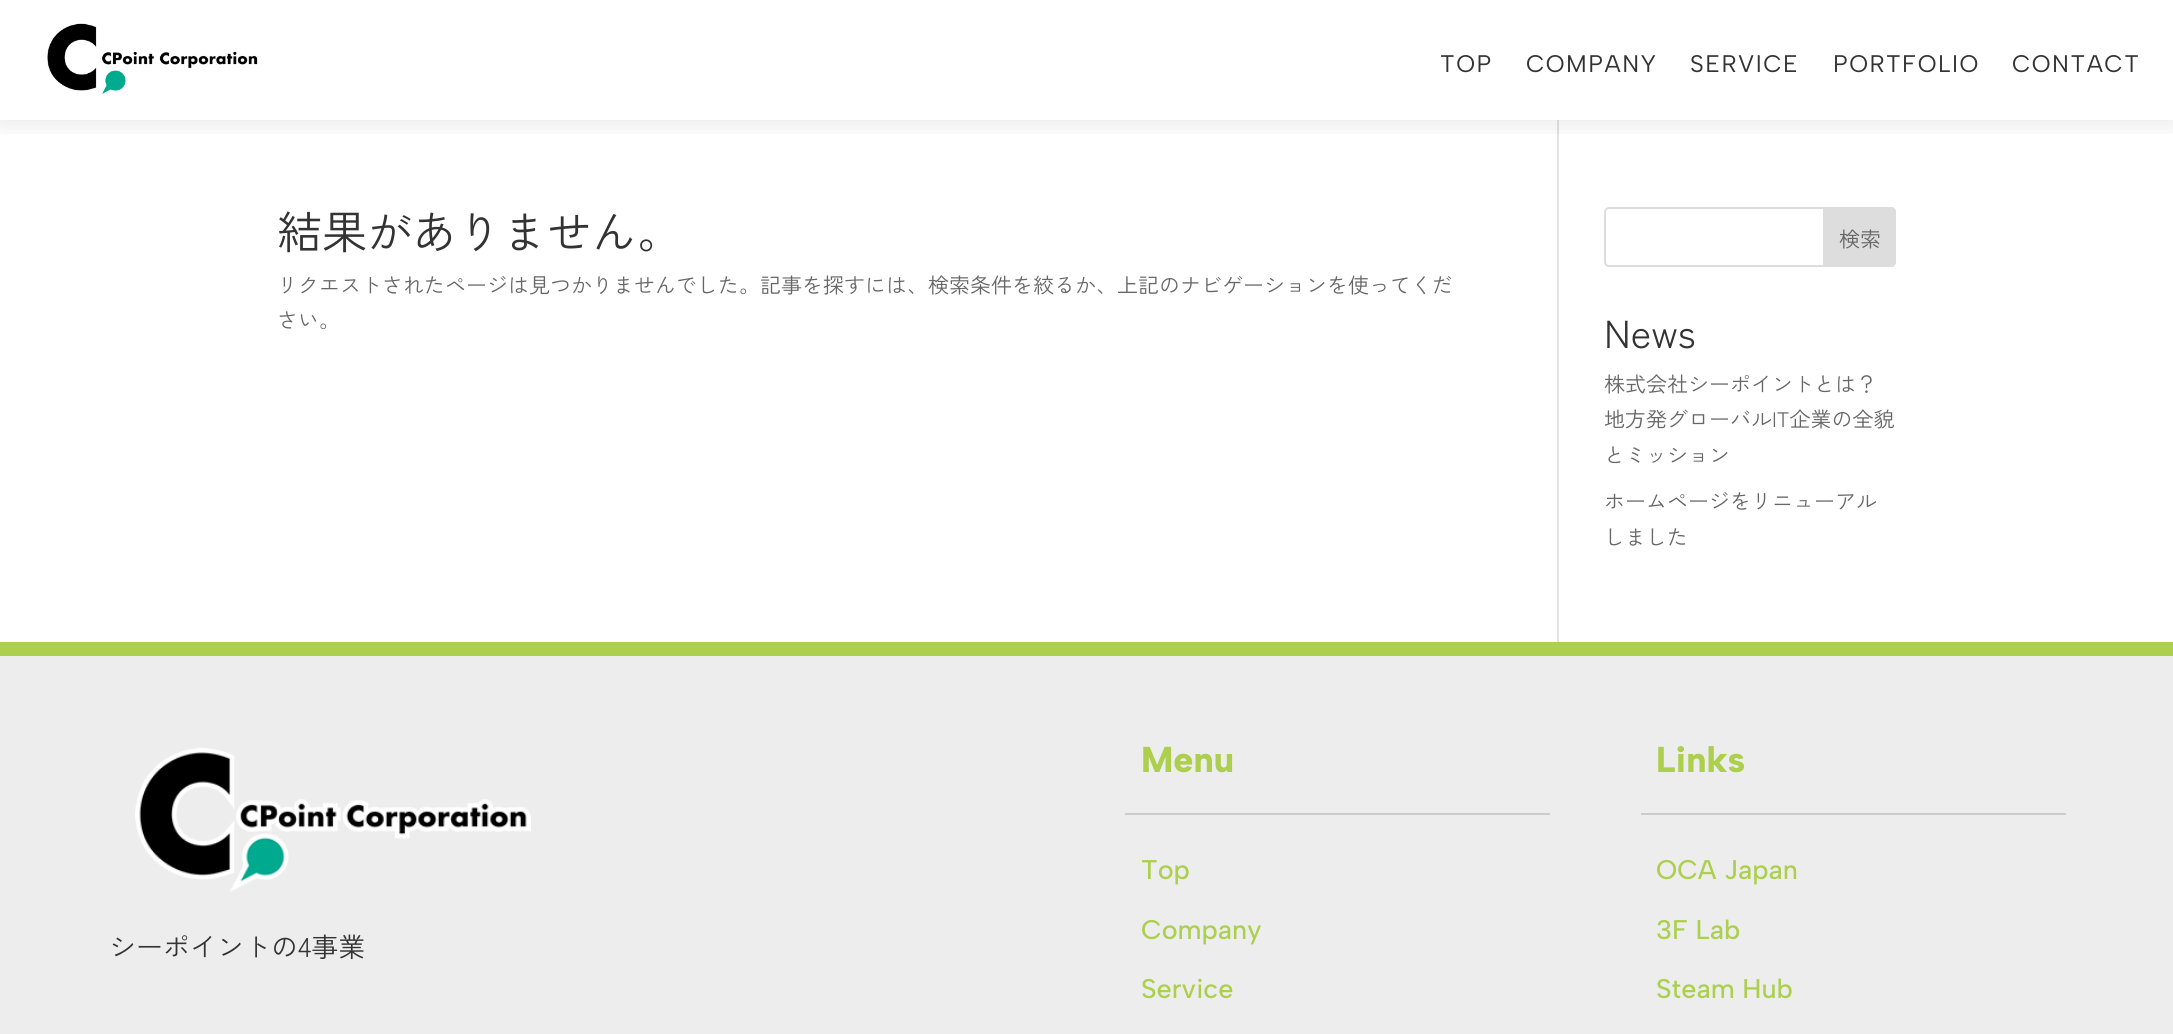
import math
import cairocffi as cairo

surface = cairo.ImageSurface(cairo.FORMAT_RGB24, 2173, 1034)
cr = cairo.Context(surface)
options = cairo.FontOptions()
options.set_hint_metrics(cairo.HINT_METRICS_OFF)
options.set_hint_style(cairo.HINT_STYLE_NONE)
cr.set_font_options(options)
cr.set_miter_limit(4)


def use_color(code):
    cr.set_source_rgb(*(v / 255 for v in bytes.fromhex(code[-6:])))


def spaced_text(x, y, s, letter, word):
    cr.move_to(x, y)
    for ch in s:
        cr.show_text(ch)
        cr.rel_move_to(letter + word * (ch == ' '), 0)


def round_rect(x, y, w, h, r):
    cr.new_sub_path()
    for i, (u, v) in enumerate([(x + w - r, y + h - r), (x + r, y + h - r), (x + r, y + r), (x + w - r, y + r)]):
        cr.arc(u, v, r, i * math.pi / 2, (i + 1) * math.pi / 2)
    cr.close_path()


def shadow(x, y, w, h, r, blur, alpha):
    cr.push_group_with_content(cairo.CONTENT_ALPHA)
    cr.set_operator(cairo.OPERATOR_SOURCE)
    for i in range(15, -16, -2):
        e = blur * i / 6
        if min(w, h) + 2 * e > 0:
            cr.set_source_rgba(0, 0, 0, alpha * math.erfc((i - 1) / 8.5) / 2)
            round_rect(x - e, y - e, w + 2 * e, h + 2 * e, max(0, min(r + e + blur * .6, min(w, h) / 2 + e)))
            cr.fill()
    cr.mask(cr.pop_group())


def picture(path, x, y, w, h):
    cr.save()
    cr.set_source_surface(cairo.ImageSurface.create_from_png(path), x, y)
    cr.rectangle(x, y, w, h)
    cr.fill()
    cr.restore()


use_color("#ffffff")
cr.paint()
use_color("#e2e2e2")
cr.rectangle(1557, 120, 2, 522)
cr.fill()
cr.save()
cr.rectangle(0, 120, 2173, 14)
cr.clip()
use_color("#000000")
shadow(0, 3, 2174, 120, 0, 13.5, 0.1)
cr.restore()
picture("img1.png", 47, 23, 211, 71)
cr.select_font_face("Albert Sans")
cr.set_font_size(24)
use_color("#333333")
spaced_text(1440, 72, "TOP", 1.5, 0)
spaced_text(1526, 72, "COMPANY", 1.5, 0)
spaced_text(1690, 72, "SERVICE", 1.5, 0)
spaced_text(1833, 72, "PORTFOLIO", 1.5, 0)
spaced_text(2012, 72, "CONTACT", 1.5, 0)
cr.select_font_face("Zen Kaku Gothic New")
cr.set_font_size(45)
cr.move_to(277, 249)
cr.show_text("結果がありません。")
cr.set_font_size(21)
use_color("#666666")
cr.move_to(277, 293)
cr.show_text("リクエストされたページは見つかりませんでした。記事を探すには、検索条件を絞るか、上記のナビゲーションを使ってくだ")
cr.move_to(277, 328)
cr.show_text("さい。")
round_rect(1605, 208, 290, 58, 4)
use_color("#dddddd")
cr.stroke()
cr.new_path()
cr.move_to(1824, 208)
cr.line_to(1891, 208)
cr.curve_to(1893, 208, 1895, 210, 1895, 212)
cr.line_to(1895, 262)
cr.curve_to(1895, 264, 1893, 266, 1891, 266)
cr.line_to(1824, 266)
cr.close_path()
cr.fill_preserve()
cr.stroke()
use_color("#666666")
cr.move_to(1839, 247)
cr.show_text("検索")
cr.set_font_size(39)
use_color("#333333")
cr.move_to(1604, 348)
cr.show_text("News")
cr.set_font_size(21)
use_color("#666666")
cr.move_to(1604, 392)
cr.show_text("株式会社シーポイントとは？")
cr.move_to(1604, 427)
cr.show_text("地方発グローバルIT企業の全貌")
cr.move_to(1604, 463)
cr.show_text("とミッション")
cr.move_to(1604, 509)
cr.show_text("ホームページをリニューアル")
cr.move_to(1604, 545)
cr.show_text("しました")
use_color("#ededed")
cr.rectangle(0, 656, 2173, 378)
cr.fill()
use_color("#accf4e")
cr.rectangle(0, 642, 2173, 14)
cr.fill()
picture("img2.png", 135, 747, 396, 145)
cr.set_font_size(27)
use_color("#333333")
cr.move_to(109, 957)
cr.show_text("シーポイントの4事業")
cr.select_font_face("Albert Sans ExtraBold")
cr.set_font_size(36)
use_color("#accf4e")
cr.move_to(1141, 772)
cr.show_text("Menu")
use_color("#cccccc")
cr.rectangle(1125, 813, 425, 2)
cr.fill()
cr.select_font_face("Albert Sans Medium")
cr.set_font_size(27)
use_color("#accf4e")
cr.move_to(1141, 879)
cr.show_text("Top")
cr.move_to(1141, 939)
cr.show_text("Company")
cr.move_to(1141, 998)
cr.show_text("Service")
cr.select_font_face("Albert Sans ExtraBold")
cr.set_font_size(36)
cr.move_to(1656, 772)
cr.show_text("Links")
use_color("#cccccc")
cr.rectangle(1641, 813, 425, 2)
cr.fill()
cr.select_font_face("Albert Sans Medium")
cr.set_font_size(27)
use_color("#accf4e")
cr.move_to(1656, 879)
cr.show_text("OCA Japan")
cr.move_to(1656, 939)
cr.show_text("3F Lab")
cr.move_to(1656, 998)
cr.show_text("Steam Hub")
surface.write_to_png("result.png")
